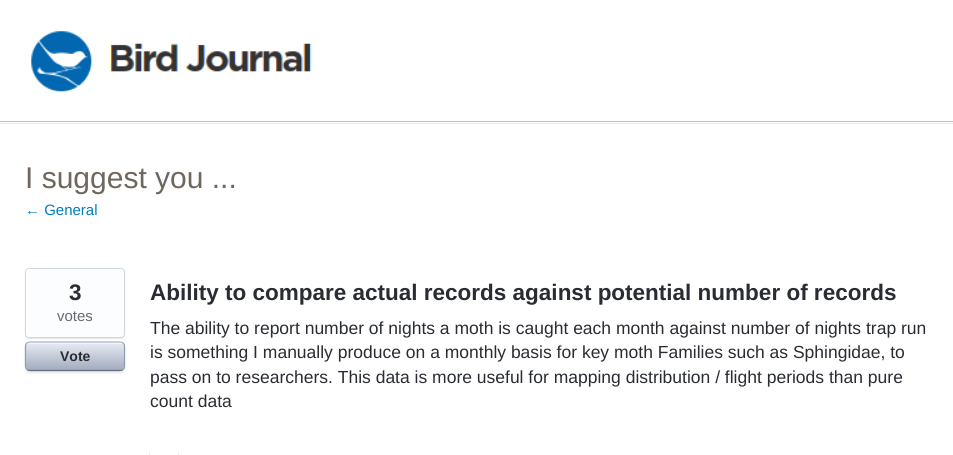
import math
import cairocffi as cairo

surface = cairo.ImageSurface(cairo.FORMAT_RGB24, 953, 455)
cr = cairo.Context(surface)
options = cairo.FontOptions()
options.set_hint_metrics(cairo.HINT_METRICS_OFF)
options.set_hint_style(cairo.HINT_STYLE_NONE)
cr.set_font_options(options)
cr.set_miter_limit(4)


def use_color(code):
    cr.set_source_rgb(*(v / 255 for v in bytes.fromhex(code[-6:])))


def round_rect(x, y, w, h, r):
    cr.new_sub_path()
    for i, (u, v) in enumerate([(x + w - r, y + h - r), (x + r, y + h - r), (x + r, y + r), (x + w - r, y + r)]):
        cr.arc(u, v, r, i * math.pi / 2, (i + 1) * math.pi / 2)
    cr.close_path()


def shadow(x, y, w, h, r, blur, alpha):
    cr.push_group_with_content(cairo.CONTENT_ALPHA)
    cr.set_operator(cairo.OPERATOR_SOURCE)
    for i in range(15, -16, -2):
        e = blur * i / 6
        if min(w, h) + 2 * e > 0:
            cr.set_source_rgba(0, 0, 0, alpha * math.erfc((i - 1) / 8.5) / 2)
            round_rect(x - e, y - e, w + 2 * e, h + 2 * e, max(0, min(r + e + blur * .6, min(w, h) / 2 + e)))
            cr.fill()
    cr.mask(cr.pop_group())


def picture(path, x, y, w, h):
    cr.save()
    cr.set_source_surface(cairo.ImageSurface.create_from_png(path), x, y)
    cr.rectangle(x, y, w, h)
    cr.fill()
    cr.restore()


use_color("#ffffff")
cr.paint()
use_color("#bfbfbf")
cr.rectangle(0, 121, 953, 1)
cr.fill()
picture("img1.png", 31, 31, 281, 61)
use_color("#e3e8f2")
cr.rectangle(0, 123, 953, 1)
cr.fill()
cr.select_font_face("Liberation Sans")
cr.set_font_size(30)
use_color("#6f675e")
cr.move_to(25, 188)
cr.show_text("I suggest you ...")
cr.set_font_size(15)
use_color("#007dbf")
cr.move_to(25, 215)
cr.show_text("← General")
use_color("#000000")
shadow(25, 269, 100, 70, 4, 0.5, 0.1)
use_color("#fcfdff")
round_rect(25.5, 268.5, 99, 69, 3.5)
cr.fill_preserve()
use_color("#cfd7e6")
cr.set_line_width(1)
cr.stroke()
cr.select_font_face("Liberation Sans", cairo.FONT_SLANT_NORMAL, cairo.FONT_WEIGHT_BOLD)
cr.set_font_size(22.5)
use_color("#292c33")
cr.move_to(69, 300)
cr.show_text("3")
cr.select_font_face("Liberation Sans")
cr.set_font_size(15)
use_color("#646b72")
cr.move_to(57, 321)
cr.show_text("votes")
use_color("#000000")
shadow(25, 343, 100, 30, 5, 1, 0.1)
gradient = cairo.LinearGradient(26, 343, 26, 370)
gradient.add_color_stop_rgba(0, 0.902, 0.918, 0.949, 1)
gradient.add_color_stop_rgba(1, 0.635, 0.675, 0.749, 1)
cr.set_source(gradient)
round_rect(26, 343, 98, 27, 4)
cr.fill()
cr.set_source_rgba(1, 1, 1, 0.5)
cr.new_path()
cr.move_to(30, 344)
cr.line_to(120, 344)
cr.curve_to(122, 344, 124, 345, 124, 348)
cr.curve_to(124, 339, 109, 343, 105, 343)
cr.line_to(45, 343)
cr.curve_to(41, 343, 26, 339, 26, 348)
cr.curve_to(26, 345, 28, 344, 30, 344)
cr.close_path()
cr.fill()
cr.new_path()
cr.move_to(27, 343)
cr.curve_to(27.5, 342.5, 29, 342, 30, 342)
cr.line_to(120, 342)
cr.curve_to(121, 342, 122.5, 342.5, 123, 343)
use_color("#a3b1cc")
cr.set_line_width(1.2)
cr.stroke()
cr.new_path()
cr.move_to(123, 343)
cr.curve_to(124, 344, 124.5, 345, 124.5, 346)
cr.line_to(124.5, 366)
cr.curve_to(124.5, 367.5, 124, 368.5, 123, 369.5)
use_color("#8f9bb3")
cr.stroke()
cr.new_path()
cr.move_to(123, 369.5)
cr.curve_to(122.5, 370, 121, 370.5, 120, 370.5)
cr.line_to(30, 370.5)
cr.curve_to(29, 370.5, 27.5, 370, 27, 369.5)
use_color("#666f80")
cr.stroke()
cr.new_path()
cr.move_to(27, 369.5)
cr.curve_to(26, 368.5, 25.5, 367.5, 25.5, 366)
cr.line_to(25.5, 346)
cr.curve_to(25.5, 345, 26, 344, 27, 343)
use_color("#8f9bb3")
cr.stroke()
cr.select_font_face("Liberation Sans", cairo.FONT_SLANT_NORMAL, cairo.FONT_WEIGHT_BOLD)
cr.set_font_size(14)
use_color("#292c33")
cr.move_to(60, 361)
cr.show_text("Vote")
cr.set_font_size(22.5)
cr.move_to(150, 300)
cr.show_text("Ability to compare actual records against potential number of records")
cr.select_font_face("Liberation Sans")
cr.set_font_size(17.5)
cr.move_to(150, 334)
cr.show_text("The ability to report number of nights a moth is caught each month against number of nights trap run")
cr.move_to(150, 358)
cr.show_text("is something I manually produce on a monthly basis for key moth Families such as Sphingidae, to")
cr.move_to(150, 383)
cr.show_text("pass on to researchers. This data is more useful for mapping distribution / flight periods than pure")
cr.move_to(150, 407)
cr.show_text("count data")
cr.save()
cr.set_fill_rule(cairo.FILL_RULE_EVEN_ODD)
cr.new_path()
cr.move_to(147, 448)
cr.line_to(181, 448)
cr.line_to(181, 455)
cr.line_to(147, 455)
cr.close_path()
cr.move_to(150, 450)
cr.line_to(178, 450)
cr.line_to(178, 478)
cr.line_to(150, 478)
cr.close_path()
cr.clip()
use_color("#000000")
shadow(150, 451, 28, 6, 0, 0.5, 0.25)
cr.restore()
cr.rectangle(150.5, 450.5, 27, 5)
use_color("#ffffff")
cr.set_line_width(1)
cr.stroke()
surface.write_to_png("result.png")
